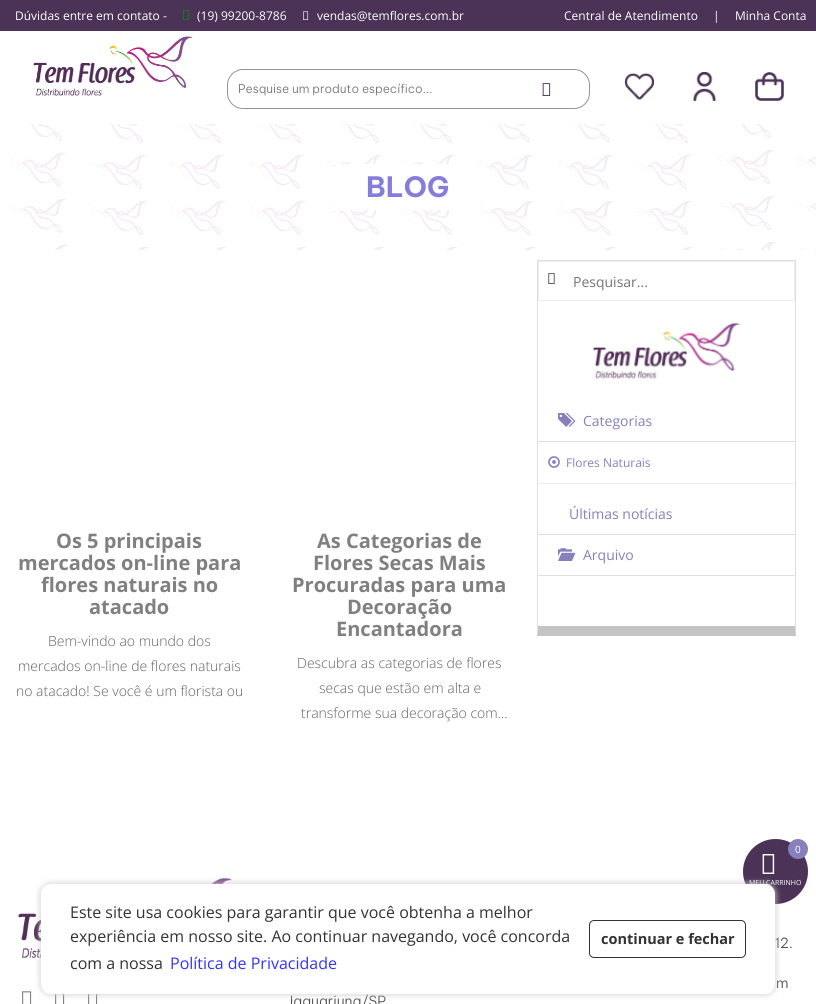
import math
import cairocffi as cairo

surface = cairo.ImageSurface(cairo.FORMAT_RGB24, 816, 1004)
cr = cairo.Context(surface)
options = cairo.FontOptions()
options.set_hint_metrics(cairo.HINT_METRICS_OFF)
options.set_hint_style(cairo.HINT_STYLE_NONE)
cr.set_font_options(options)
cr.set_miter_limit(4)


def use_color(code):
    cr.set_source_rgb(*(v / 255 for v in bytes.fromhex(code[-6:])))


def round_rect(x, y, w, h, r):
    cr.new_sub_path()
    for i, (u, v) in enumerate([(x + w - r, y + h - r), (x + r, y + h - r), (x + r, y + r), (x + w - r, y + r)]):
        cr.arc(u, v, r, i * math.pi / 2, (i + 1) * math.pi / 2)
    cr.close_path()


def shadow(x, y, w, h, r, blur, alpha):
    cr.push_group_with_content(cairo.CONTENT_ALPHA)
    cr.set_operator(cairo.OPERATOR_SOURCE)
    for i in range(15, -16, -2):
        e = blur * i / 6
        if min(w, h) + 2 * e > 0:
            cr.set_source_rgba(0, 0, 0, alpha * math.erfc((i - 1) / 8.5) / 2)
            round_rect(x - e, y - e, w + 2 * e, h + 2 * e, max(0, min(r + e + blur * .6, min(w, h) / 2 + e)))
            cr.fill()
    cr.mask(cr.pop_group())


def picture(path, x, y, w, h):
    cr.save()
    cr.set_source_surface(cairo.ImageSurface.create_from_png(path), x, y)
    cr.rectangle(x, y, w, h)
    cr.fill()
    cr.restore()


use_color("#ffffff")
cr.paint()
use_color("#4b3257")
cr.rectangle(0, 0, 816, 31)
cr.fill()
cr.select_font_face("Open Sans")
cr.set_font_size(12)
use_color("#ffffff")
cr.move_to(15, 20)
cr.show_text("Dúvidas entre em contato -")
picture("img1.png", 183, 10, 7, 10)
cr.move_to(197, 20)
cr.show_text("(19) 99200-8786")
picture("img2.png", 303, 11, 6, 9)
cr.move_to(317, 20)
cr.show_text("vendas@temflores.com.br")
cr.move_to(564, 20)
cr.show_text("Central de Atendimento")
cr.move_to(713, 20)
cr.show_text("|")
cr.move_to(735, 20)
cr.show_text("Minha Conta")
picture("img3.png", 33, 36, 160, 60)
round_rect(227.5, 69.5, 362, 39, 15.5)
use_color("#949494")
cr.set_line_width(1)
cr.stroke()
cr.select_font_face("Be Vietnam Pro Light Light")
use_color("#757575")
cr.move_to(238, 93)
cr.show_text("Pesquise um produto específico...")
picture("img4.png", 542, 83, 9, 13)
picture("img5.png", 624, 73, 30, 27)
picture("img6.png", 692, 72, 25, 29)
picture("img7.png", 755, 72, 29, 29)
picture("img8.png", 0, 124, 816, 126)
use_color("#ffffff")
cr.rectangle(336, 164, 144, 46)
cr.fill()
cr.select_font_face("Be Vietnam Pro", cairo.FONT_SLANT_NORMAL, cairo.FONT_WEIGHT_BOLD)
cr.set_font_size(28)
use_color("#857ddd")
cr.move_to(366, 197)
cr.show_text("BLOG")
use_color("#dfdfdf")
cr.rectangle(537, 260, 259, 1)
cr.fill()
cr.new_path()
cr.move_to(796, 260)
cr.line_to(796, 636)
cr.line_to(795, 626)
cr.line_to(795, 261)
cr.close_path()
cr.fill()
use_color("#c4c4c4")
cr.new_path()
cr.move_to(796, 636)
cr.line_to(537, 636)
cr.line_to(538, 626)
cr.line_to(795, 626)
cr.close_path()
cr.fill()
use_color("#dfdfdf")
cr.new_path()
cr.move_to(537, 636)
cr.line_to(537, 260)
cr.line_to(538, 261)
cr.line_to(538, 626)
cr.close_path()
cr.fill()
cr.rectangle(538.5, 261.5, 256, 39)
use_color("#eeeeee")
cr.stroke()
picture("img9.png", 548, 273, 7, 11)
cr.select_font_face("Open Sans")
cr.set_font_size(14)
use_color("#757575")
cr.move_to(573, 287)
cr.show_text("Pesquisar...")
picture("img10.png", 592, 322, 149, 57)
use_color("#dfdfdf")
cr.rectangle(538, 441, 257, 1)
cr.fill()
picture("img11.png", 558, 413, 18, 14)
use_color("#8680bc")
cr.move_to(583, 426)
cr.show_text("Categorias")
use_color("#eeeeee")
cr.rectangle(538, 483, 257, 1)
cr.fill()
picture("img12.png", 548, 456, 12, 12)
cr.set_font_size(12)
use_color("#8680bc")
cr.move_to(566, 467)
cr.show_text("Flores Naturais")
use_color("#dfdfdf")
cr.rectangle(538, 534, 257, 1)
cr.fill()
cr.set_font_size(14)
use_color("#8680bc")
cr.move_to(569, 519)
cr.show_text("Últimas notícias")
use_color("#dfdfdf")
cr.rectangle(538, 575, 257, 1)
cr.fill()
picture("img13.png", 558, 548, 18, 13)
use_color("#8680bc")
cr.move_to(583, 560)
cr.show_text("Arquivo")
cr.select_font_face("Open Sans", cairo.FONT_SLANT_NORMAL, cairo.FONT_WEIGHT_BOLD)
cr.set_font_size(20)
use_color("#808080")
cr.move_to(56, 548)
cr.show_text("Os 5 principais")
cr.move_to(18, 570)
cr.show_text("mercados on-line para")
cr.move_to(41, 592)
cr.show_text("flores naturais no")
cr.move_to(89, 614)
cr.show_text("atacado")
cr.select_font_face("Open Sans Light")
cr.set_font_size(14)
use_color("#606060")
cr.move_to(48, 646)
cr.show_text("Bem-vindo ao mundo dos")
cr.move_to(18, 671)
cr.show_text("mercados on-line de flores naturais")
cr.move_to(16, 696)
cr.show_text("no atacado! Se você é um florista ou")
cr.select_font_face("Open Sans", cairo.FONT_SLANT_NORMAL, cairo.FONT_WEIGHT_BOLD)
cr.set_font_size(20)
use_color("#808080")
cr.move_to(317, 548)
cr.show_text("As Categorias de")
cr.move_to(313, 570)
cr.show_text("Flores Secas Mais")
cr.move_to(292, 592)
cr.show_text("Procuradas para uma")
cr.move_to(347, 614)
cr.show_text("Decoração")
cr.move_to(336, 636)
cr.show_text("Encantadora")
cr.select_font_face("Open Sans Light")
cr.set_font_size(14)
use_color("#606060")
cr.move_to(297, 668)
cr.show_text("Descubra as categorias de flores")
cr.move_to(319, 693)
cr.show_text("secas que estão em alta e")
cr.move_to(301, 718)
cr.show_text("transforme sua decoração com…")
use_color("#4b3257")
cr.new_path()
cr.arc(775.5, 871.5, 32.5, 0, 2 * math.pi)
cr.fill()
use_color("#8680bc")
cr.arc(798, 849, 10, 0, 2 * math.pi)
cr.fill()
cr.select_font_face("Open Sans")
cr.set_font_size(10)
use_color("#ffffff")
cr.move_to(795, 853)
cr.show_text("0")
picture("img14.png", 762, 854, 13, 20)
cr.set_font_size(7)
cr.move_to(749, 885)
cr.show_text("MEU CARRINHO")
picture("img15.png", 18, 878, 214, 81)
picture("img16.png", 22, 991, 10, 13)
picture("img17.png", 55, 994, 10, 10)
picture("img17.png", 88, 994, 10, 10)
cr.select_font_face("Be Vietnam Pro Light Light")
cr.set_font_size(14)
use_color("#4d4d4d")
cr.move_to(775, 948)
cr.show_text("12.")
cr.move_to(776, 988)
cr.show_text("m")
cr.move_to(287, 1006)
cr.show_text("Jaguariuna/SP")
use_color("#cccccc")
shadow(39, 882, 738, 114, 12, 2.5, 0.63)
use_color("#ffffff")
round_rect(41, 884, 734, 110, 10)
cr.fill()
cr.select_font_face("Open Sans")
cr.set_font_size(16)
use_color("#333333")
cr.move_to(70, 918)
cr.show_text("Este site usa cookies para garantir que você obtenha a melhor")
cr.move_to(70, 942)
cr.show_text("experiência em nosso site. Ao continuar navegando, você concorda")
cr.move_to(70, 969)
cr.show_text("com a nossa")
use_color("#3333ff")
cr.move_to(170, 969)
cr.show_text("Política de Privacidade")
round_rect(589.5, 920.5, 156, 37, 4.5)
use_color("#333333")
cr.stroke()
cr.select_font_face("Open Sans", cairo.FONT_SLANT_NORMAL, cairo.FONT_WEIGHT_BOLD)
cr.set_font_size(14.5)
cr.move_to(601, 944)
cr.show_text("continuar e fechar")
surface.write_to_png("result.png")
